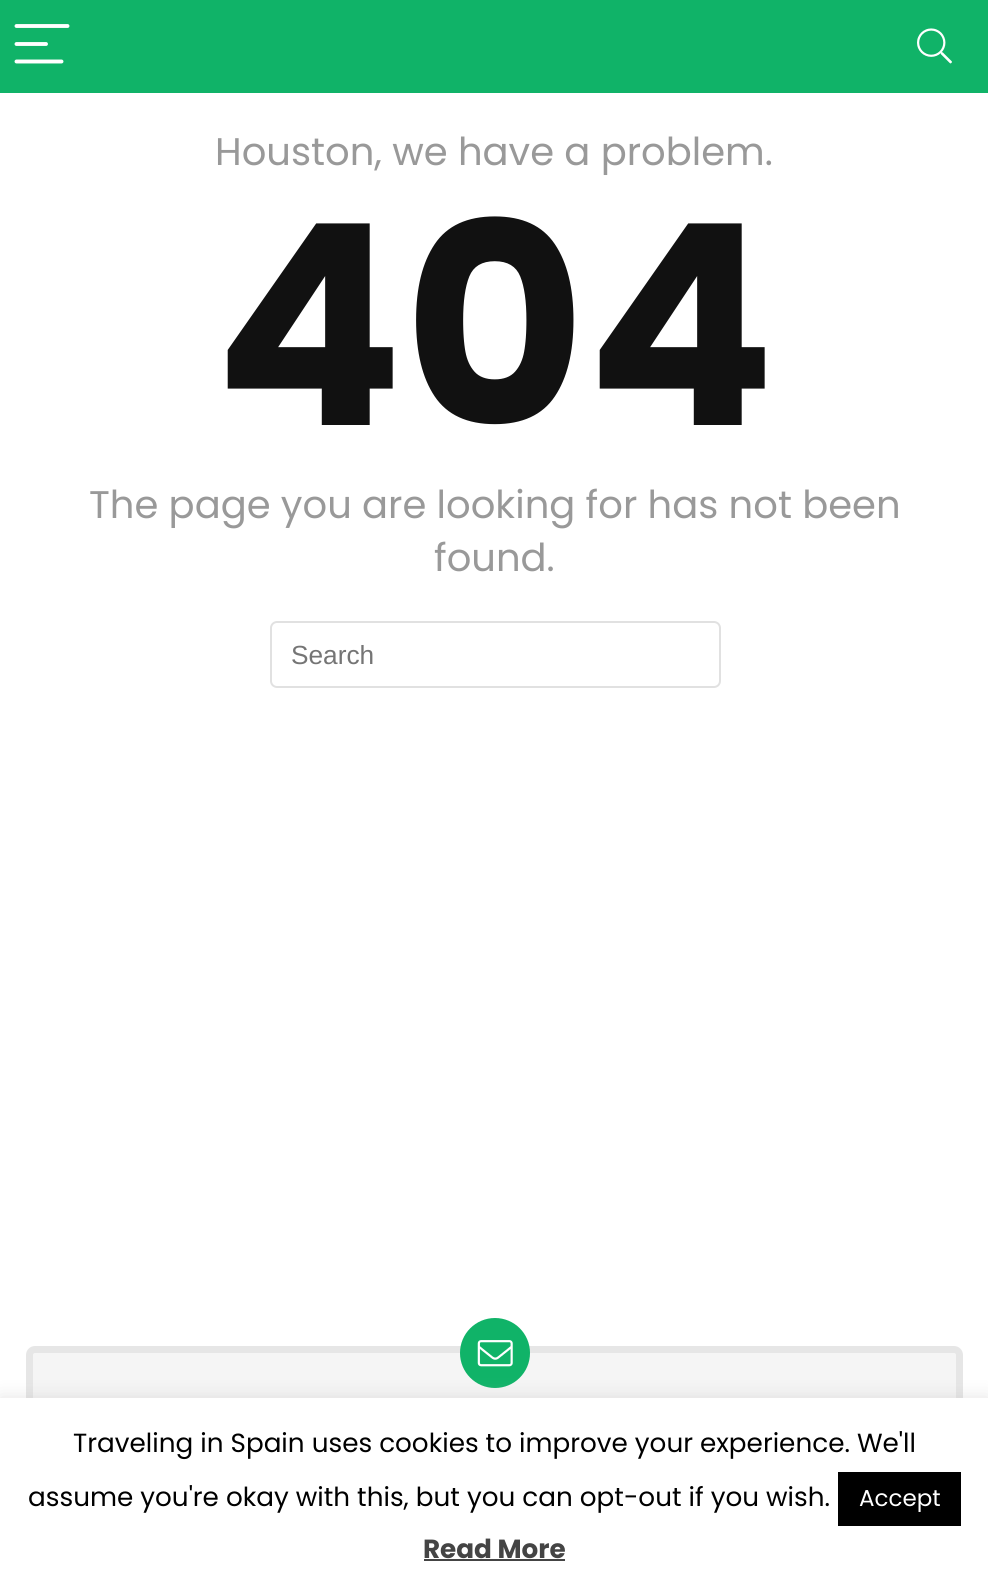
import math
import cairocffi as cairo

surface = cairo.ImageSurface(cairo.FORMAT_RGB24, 988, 1589)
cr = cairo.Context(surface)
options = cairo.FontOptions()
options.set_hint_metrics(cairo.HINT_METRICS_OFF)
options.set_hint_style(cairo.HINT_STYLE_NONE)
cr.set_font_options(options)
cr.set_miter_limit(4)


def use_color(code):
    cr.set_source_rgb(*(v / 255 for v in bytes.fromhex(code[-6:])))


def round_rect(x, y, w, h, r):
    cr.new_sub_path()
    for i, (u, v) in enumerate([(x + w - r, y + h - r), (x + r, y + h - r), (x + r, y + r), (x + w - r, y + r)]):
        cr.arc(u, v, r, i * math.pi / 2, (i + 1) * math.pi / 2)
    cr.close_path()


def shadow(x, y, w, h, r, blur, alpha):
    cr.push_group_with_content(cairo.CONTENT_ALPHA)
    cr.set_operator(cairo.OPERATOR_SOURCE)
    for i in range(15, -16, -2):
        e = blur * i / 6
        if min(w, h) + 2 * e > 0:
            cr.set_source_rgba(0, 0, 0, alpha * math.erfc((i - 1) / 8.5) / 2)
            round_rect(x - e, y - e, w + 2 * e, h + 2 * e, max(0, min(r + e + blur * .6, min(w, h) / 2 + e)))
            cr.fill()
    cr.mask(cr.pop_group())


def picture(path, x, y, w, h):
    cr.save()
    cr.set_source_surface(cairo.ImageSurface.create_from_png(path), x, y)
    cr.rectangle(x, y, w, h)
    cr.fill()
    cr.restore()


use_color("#ffffff")
cr.paint()
use_color("#10b368")
cr.rectangle(0, 0, 988, 93)
cr.fill()
cr.new_path()
cr.move_to(16.5, 26)
cr.line_to(67.5, 26)
cr.move_to(16.5, 44)
cr.line_to(46, 44)
cr.move_to(16.5, 61.5)
cr.line_to(61.5, 61.5)
use_color("#ffffff")
cr.set_line_width(3.9)
cr.set_line_cap(cairo.LINE_CAP_ROUND)
cr.stroke()
picture("img1.png", 917, 28, 35, 36)
cr.select_font_face("Poppins")
cr.set_font_size(38.5)
use_color("#999999")
cr.move_to(215, 165)
cr.show_text("Houston, we have a problem.")
cr.select_font_face("Poppins", cairo.FONT_SLANT_NORMAL, cairo.FONT_WEIGHT_BOLD)
cr.set_font_size(280)
use_color("#111111")
cr.move_to(214, 425)
cr.show_text("404")
cr.select_font_face("Poppins")
cr.set_font_size(38.5)
use_color("#999999")
cr.move_to(89, 518)
cr.show_text("The page you are looking for has not been")
cr.move_to(434, 571)
cr.show_text("found.")
round_rect(271, 622, 449, 65, 6)
use_color("#e1e1e1")
cr.set_line_width(2)
cr.set_line_cap(cairo.LINE_CAP_BUTT)
cr.stroke()
cr.select_font_face("Liberation Sans")
cr.set_font_size(26.25)
use_color("#757575")
cr.move_to(291, 664)
cr.show_text("Search")
use_color("#f5f5f5")
round_rect(29.5, 1349.5, 930, 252, 5.5)
cr.fill_preserve()
use_color("#e6e6e6")
cr.set_line_width(7)
cr.stroke()
use_color("#10b368")
cr.arc(495, 1353, 35, 0, 2 * math.pi)
cr.fill()
picture("img2.png", 477, 1340, 36, 27)
use_color("#acabab")
shadow(0, 1397, 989, 190, 0, 9, 0.3)
use_color("#ffffff")
cr.rectangle(0, 1398, 988, 191)
cr.fill()
cr.select_font_face("Poppins")
use_color("#000000")
cr.move_to(73, 1452)
cr.show_text("Traveling in Spain uses cookies to improve your experience. We'll")
cr.move_to(28, 1506)
cr.show_text("assume you're okay with this, but you can opt-out if you wish.")
cr.rectangle(838, 1472, 123, 54)
cr.fill()
cr.set_font_size(23)
use_color("#ffffff")
cr.move_to(859, 1506)
cr.show_text("Accept")
cr.select_font_face("Poppins", cairo.FONT_SLANT_NORMAL, cairo.FONT_WEIGHT_BOLD)
cr.set_font_size(26.25)
use_color("#444444")
cr.move_to(423, 1558)
cr.show_text("Read More")
cr.rectangle(424, 1559, 141, 2)
cr.fill()
surface.write_to_png("result.png")
